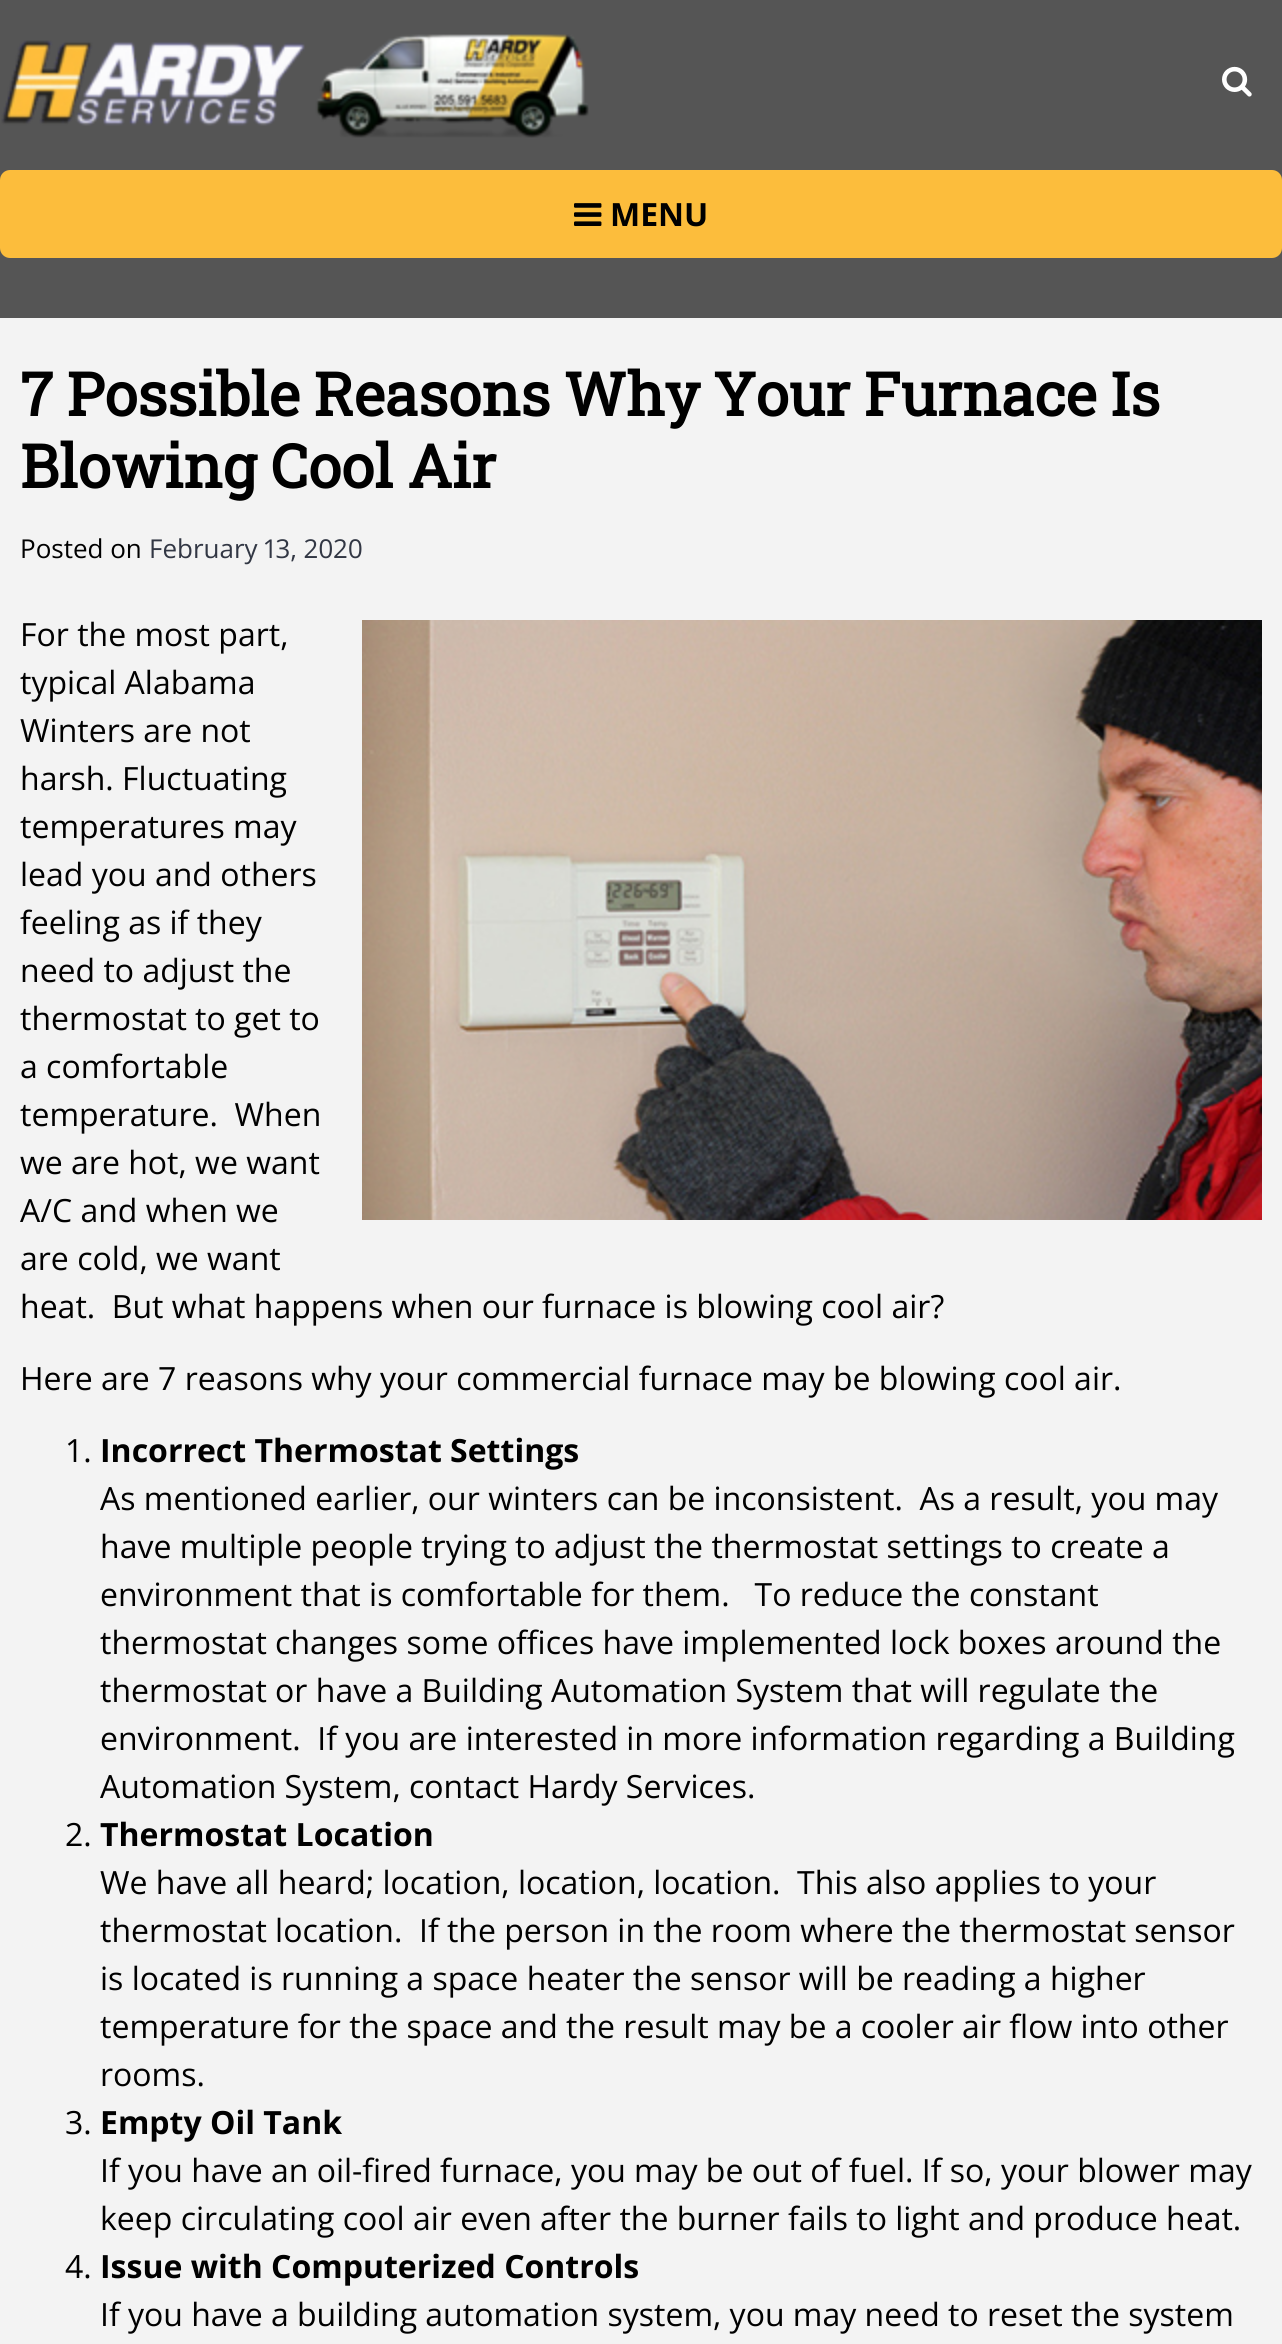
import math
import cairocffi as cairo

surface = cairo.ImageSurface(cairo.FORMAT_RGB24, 1282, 2344)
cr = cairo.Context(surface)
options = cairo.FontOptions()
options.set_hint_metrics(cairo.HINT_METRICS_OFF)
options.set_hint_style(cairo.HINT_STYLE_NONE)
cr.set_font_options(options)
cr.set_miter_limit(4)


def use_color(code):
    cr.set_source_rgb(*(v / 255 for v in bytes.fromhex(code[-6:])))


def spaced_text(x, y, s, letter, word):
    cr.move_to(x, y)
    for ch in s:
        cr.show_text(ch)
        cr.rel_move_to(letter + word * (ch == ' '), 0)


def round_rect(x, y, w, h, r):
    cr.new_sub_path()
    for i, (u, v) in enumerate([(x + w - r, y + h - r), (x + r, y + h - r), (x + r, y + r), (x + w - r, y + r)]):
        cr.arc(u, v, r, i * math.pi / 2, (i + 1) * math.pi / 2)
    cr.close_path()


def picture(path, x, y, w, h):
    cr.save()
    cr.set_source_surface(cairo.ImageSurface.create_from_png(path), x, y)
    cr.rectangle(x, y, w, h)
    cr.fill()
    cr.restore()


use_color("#555555")
cr.paint()
picture("img1.png", 1, 34, 588, 104)
picture("img2.png", 1222, 66, 30, 31)
use_color("#fcbd3c")
round_rect(0, 170, 1282, 88, 10)
cr.fill()
picture("img3.png", 574, 203, 28, 23)
cr.select_font_face("Open Sans", cairo.FONT_SLANT_NORMAL, cairo.FONT_WEIGHT_BOLD)
cr.set_font_size(32)
use_color("#000000")
cr.move_to(610, 226)
cr.show_text("MENU")
use_color("#f3f3f3")
cr.rectangle(0, 318, 1282, 2026)
cr.fill()
cr.select_font_face("Roboto Slab", cairo.FONT_SLANT_NORMAL, cairo.FONT_WEIGHT_BOLD)
cr.set_font_size(60)
use_color("#000000")
spaced_text(20, 416, "7 Possible Reasons Why Your Furnace Is", 0, -1.5)
spaced_text(20, 488, "Blowing Cool Air", 0, -1)
cr.select_font_face("Open Sans")
cr.set_font_size(26)
cr.move_to(20, 558)
cr.show_text("Posted on")
cr.select_font_face("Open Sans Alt")
use_color("#323744")
cr.move_to(149, 558)
cr.show_text("February 13, 2020")
cr.select_font_face("Open Sans")
cr.set_font_size(32)
use_color("#000000")
cr.move_to(20, 646)
cr.show_text("For the most part,")
picture("img4.png", 362, 620, 900, 600)
cr.move_to(20, 694)
cr.show_text("typical Alabama")
cr.move_to(20, 742)
cr.show_text("Winters are not")
cr.move_to(20, 790)
cr.show_text("harsh. Fluctuating")
cr.move_to(20, 838)
cr.show_text("temperatures may")
cr.move_to(20, 886)
cr.show_text("lead you and others")
cr.move_to(20, 934)
cr.show_text("feeling as if they")
cr.move_to(20, 982)
cr.show_text("need to adjust the")
cr.move_to(20, 1030)
cr.show_text("thermostat to get to")
cr.move_to(20, 1078)
cr.show_text("a comfortable")
cr.move_to(20, 1126)
cr.show_text("temperature.  When")
cr.move_to(20, 1174)
cr.show_text("we are hot, we want")
cr.move_to(20, 1222)
cr.show_text("A/C and when we")
cr.move_to(20, 1270)
cr.show_text("are cold, we want")
cr.move_to(20, 1318)
cr.show_text("heat.  But what happens when our furnace is blowing cool air?")
cr.move_to(20, 1390)
cr.show_text("Here are 7 reasons why your commercial furnace may be blowing cool air.")
cr.move_to(65, 1462)
cr.show_text("1.")
cr.select_font_face("Open Sans", cairo.FONT_SLANT_NORMAL, cairo.FONT_WEIGHT_BOLD)
cr.move_to(100, 1462)
cr.show_text("Incorrect Thermostat Settings")
cr.select_font_face("Open Sans")
cr.move_to(100, 1510)
cr.show_text("As mentioned earlier, our winters can be inconsistent.  As a result, you may")
cr.move_to(100, 1558)
cr.show_text("have multiple people trying to adjust the thermostat settings to create a")
cr.move_to(100, 1606)
cr.show_text("environment that is comfortable for them.   To reduce the constant")
cr.move_to(100, 1654)
cr.show_text("thermostat changes some offices have implemented lock boxes around the")
cr.move_to(100, 1702)
cr.show_text("thermostat or have a Building Automation System that will regulate the")
cr.move_to(100, 1750)
cr.show_text("environment.  If you are interested in more information regarding a Building")
cr.move_to(100, 1798)
cr.show_text("Automation System, contact Hardy Services.")
cr.move_to(65, 1846)
cr.show_text("2.")
cr.select_font_face("Open Sans", cairo.FONT_SLANT_NORMAL, cairo.FONT_WEIGHT_BOLD)
cr.move_to(100, 1846)
cr.show_text("Thermostat Location")
cr.select_font_face("Open Sans")
cr.move_to(100, 1894)
cr.show_text("We have all heard; location, location, location.  This also applies to your")
cr.move_to(100, 1942)
cr.show_text("thermostat location.  If the person in the room where the thermostat sensor")
cr.move_to(100, 1990)
cr.show_text("is located is running a space heater the sensor will be reading a higher")
cr.move_to(100, 2038)
cr.show_text("temperature for the space and the result may be a cooler air flow into other")
cr.move_to(100, 2086)
cr.show_text("rooms.")
cr.move_to(65, 2134)
cr.show_text("3.")
cr.select_font_face("Open Sans", cairo.FONT_SLANT_NORMAL, cairo.FONT_WEIGHT_BOLD)
cr.move_to(100, 2134)
cr.show_text("Empty Oil Tank")
cr.select_font_face("Open Sans")
cr.move_to(100, 2182)
cr.show_text("If you have an oil-fired furnace, you may be out of fuel. If so, your blower may")
cr.move_to(100, 2230)
cr.show_text("keep circulating cool air even after the burner fails to light and produce heat.")
cr.move_to(65, 2278)
cr.show_text("4.")
cr.select_font_face("Open Sans", cairo.FONT_SLANT_NORMAL, cairo.FONT_WEIGHT_BOLD)
cr.move_to(100, 2278)
cr.show_text("Issue with Computerized Controls")
cr.select_font_face("Open Sans")
cr.move_to(100, 2326)
cr.show_text("If you have a building automation system, you may need to reset the system")
surface.write_to_png("result.png")
